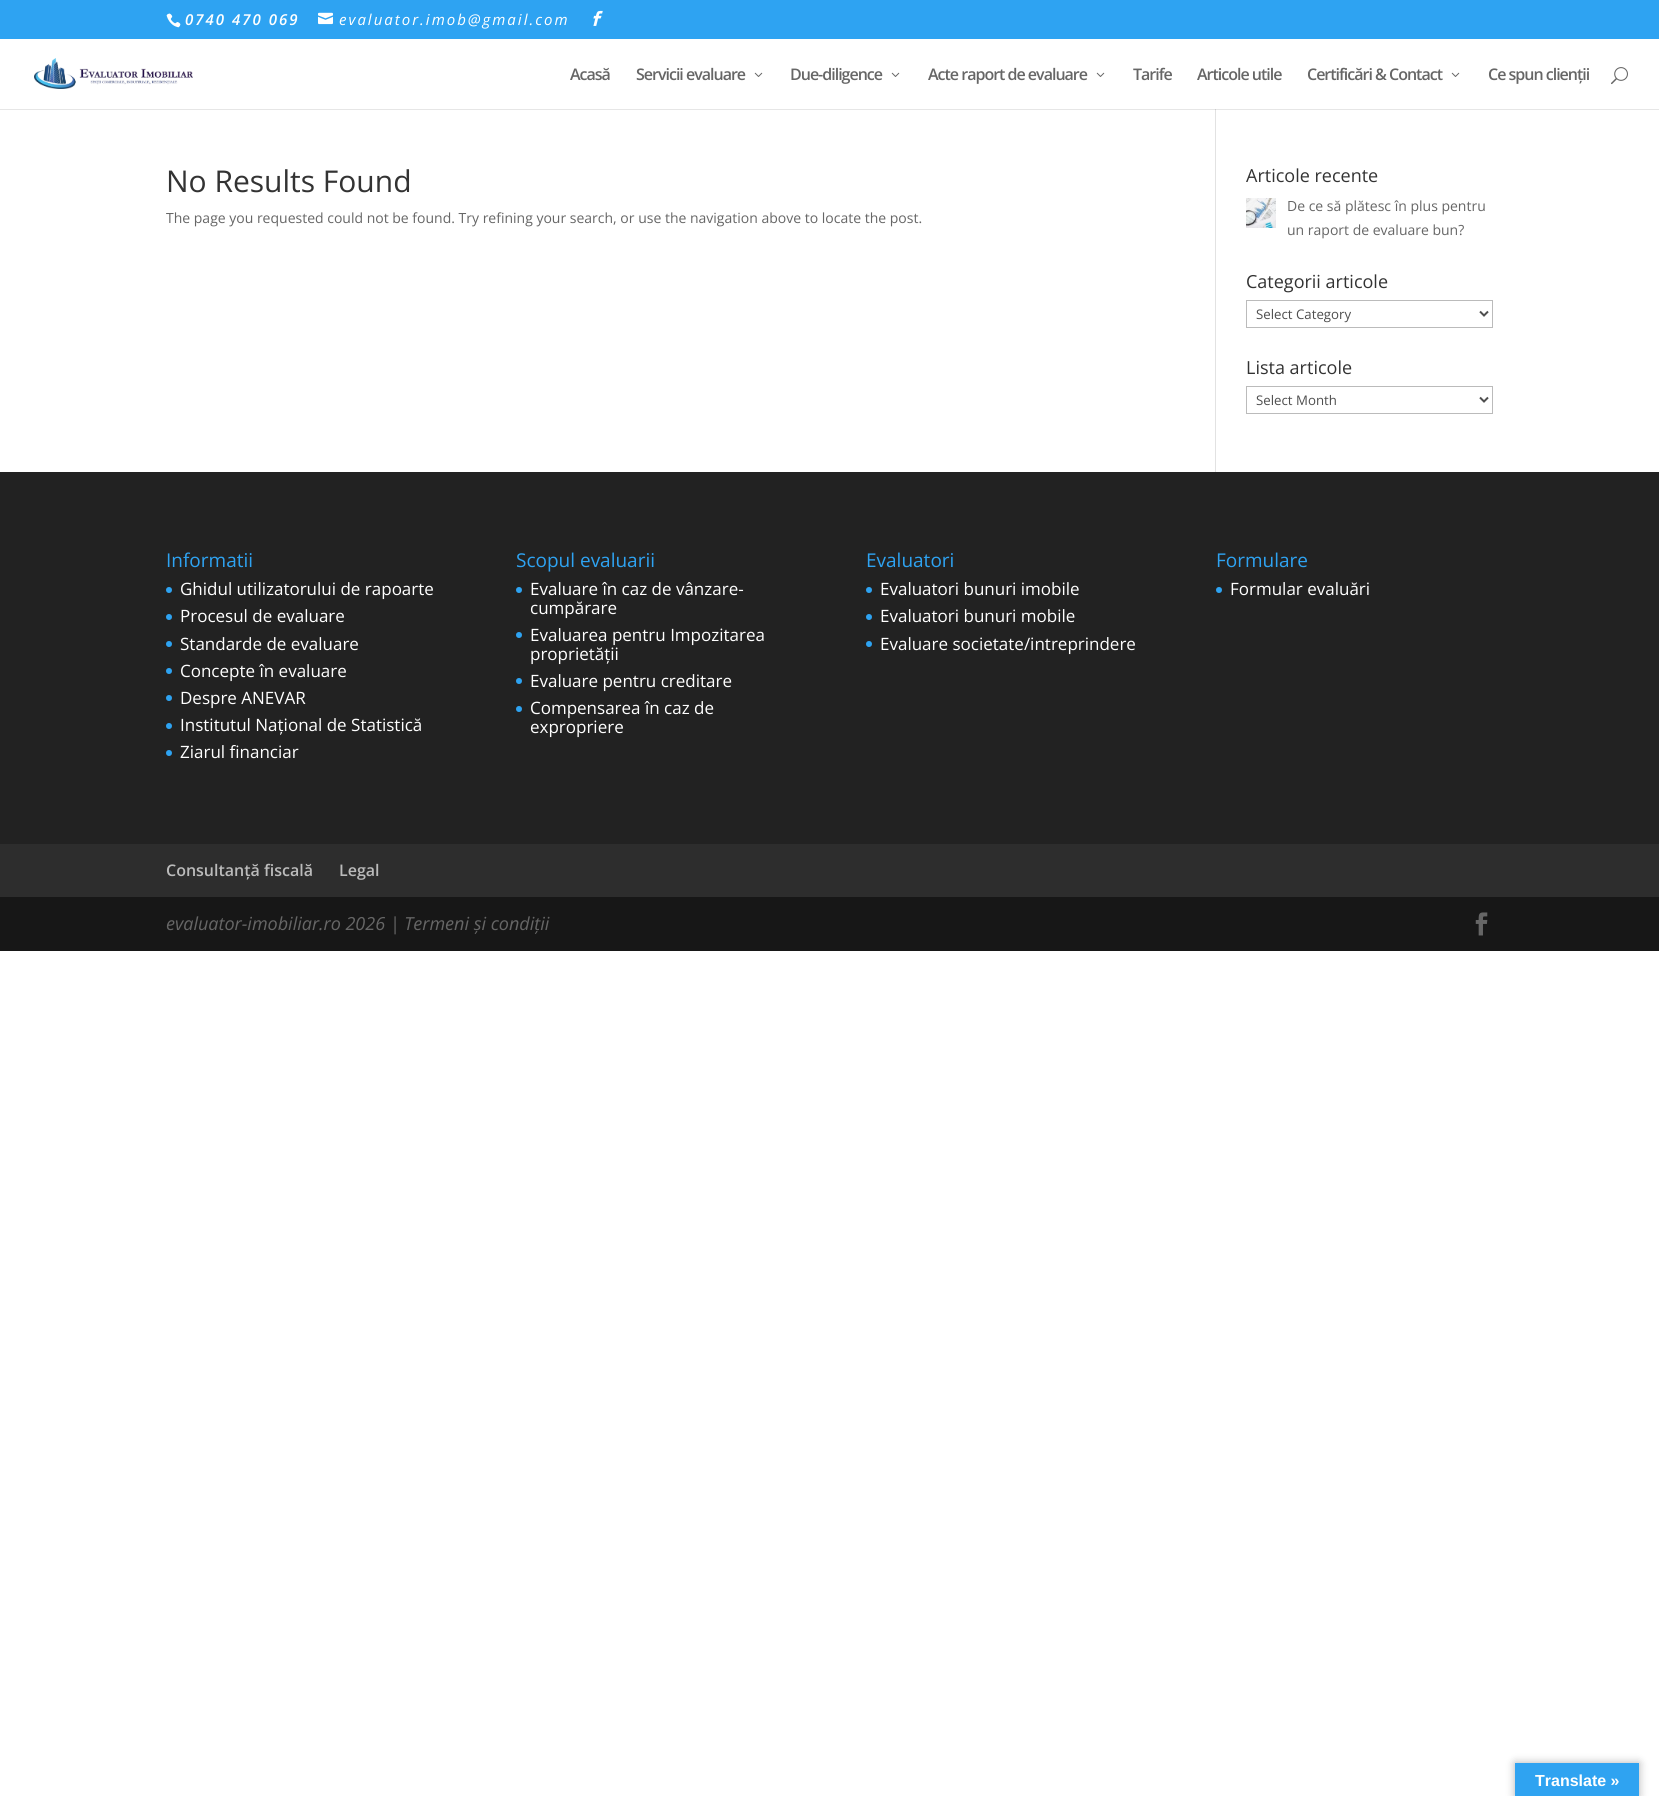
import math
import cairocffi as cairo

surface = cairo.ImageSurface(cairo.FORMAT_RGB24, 1659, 1796)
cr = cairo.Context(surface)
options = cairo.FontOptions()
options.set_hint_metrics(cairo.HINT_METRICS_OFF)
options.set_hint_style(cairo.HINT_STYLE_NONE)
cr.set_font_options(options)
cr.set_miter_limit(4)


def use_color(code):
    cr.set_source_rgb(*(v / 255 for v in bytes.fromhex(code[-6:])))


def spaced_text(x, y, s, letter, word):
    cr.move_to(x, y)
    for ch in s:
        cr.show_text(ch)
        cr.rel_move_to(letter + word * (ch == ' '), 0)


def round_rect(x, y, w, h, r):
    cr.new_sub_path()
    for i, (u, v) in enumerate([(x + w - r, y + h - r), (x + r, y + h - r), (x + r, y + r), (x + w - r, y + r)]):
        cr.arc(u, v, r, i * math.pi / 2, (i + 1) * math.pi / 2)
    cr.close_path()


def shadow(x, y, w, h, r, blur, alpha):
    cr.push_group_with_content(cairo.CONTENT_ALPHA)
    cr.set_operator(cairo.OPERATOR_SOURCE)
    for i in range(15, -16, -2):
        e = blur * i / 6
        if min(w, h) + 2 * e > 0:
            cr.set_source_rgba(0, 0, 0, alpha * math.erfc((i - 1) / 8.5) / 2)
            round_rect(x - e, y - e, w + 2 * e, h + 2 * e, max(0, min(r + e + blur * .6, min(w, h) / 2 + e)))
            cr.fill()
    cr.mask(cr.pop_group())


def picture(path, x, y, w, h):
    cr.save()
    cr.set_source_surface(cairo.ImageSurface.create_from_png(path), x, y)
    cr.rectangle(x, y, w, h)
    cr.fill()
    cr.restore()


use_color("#ffffff")
cr.paint()
use_color("#e6e6e6")
cr.rectangle(0, 109, 1659, 1)
cr.fill()
use_color("#2ea3f2")
cr.rectangle(0, 0, 1659, 39)
cr.fill()
picture("img1.png", 166, 13, 15, 15)
cr.select_font_face("Open Sans SemiBold", cairo.FONT_SLANT_ITALIC)
cr.set_font_size(15)
use_color("#ffffff")
spaced_text(185, 25, "0740 470 069", 2, 0)
picture("img2.png", 318, 12, 15, 13)
cr.select_font_face("Open Sans", cairo.FONT_SLANT_ITALIC)
spaced_text(339, 25, "evaluator.imob@gmail.com", 2, 0)
picture("img3.png", 593, 10, 10, 16)
use_color("#e2e2e2")
cr.rectangle(1215, 108, 1, 364)
cr.fill()
use_color("#ffffff")
cr.rectangle(1215, 108, 1, 1)
cr.fill()
picture("img4.png", 34, 58, 159, 31)
cr.select_font_face("Open Sans SemiBold")
cr.set_font_size(16)
use_color("#666666")
spaced_text(570, 80, "Acasă", -1, 0)
spaced_text(636, 80, "Servicii evaluare", -1, 0)
picture("img5.png", 754, 72, 9, 5)
spaced_text(790, 80, "Due-diligence", -1, 0)
picture("img5.png", 891, 72, 9, 5)
spaced_text(928, 80, "Acte raport de evaluare", -1, 0)
picture("img5.png", 1096, 72, 9, 5)
spaced_text(1133, 80, "Tarife", -1, 0)
spaced_text(1197, 80, "Articole utile", -1, 0)
spaced_text(1307, 80, "Certificări & Contact", -1, 0)
picture("img5.png", 1451, 72, 9, 5)
spaced_text(1488, 80, "Ce spun clienții", -1, 0)
picture("img6.png", 1611, 67, 17, 18)
use_color("#cbcbcb")
cr.rectangle(1215, 109, 1, 1)
cr.fill()
cr.select_font_face("Open Sans")
cr.set_font_size(30)
use_color("#333333")
cr.move_to(166, 192)
cr.show_text("No Results Found")
cr.set_font_size(14)
use_color("#666666")
cr.move_to(166, 223)
cr.show_text("The page you requested could not be found. Try refining your search, or use the navigation above to locate the post.")
cr.set_font_size(18)
use_color("#333333")
cr.move_to(1246, 182)
cr.show_text("Articole recente")
picture("img7.png", 1246, 198, 30, 30)
cr.set_font_size(14)
use_color("#666666")
cr.move_to(1287, 211)
cr.show_text("De ce să plătesc în plus pentru")
cr.move_to(1287, 235)
cr.show_text("un raport de evaluare bun?")
cr.set_font_size(18)
use_color("#333333")
cr.move_to(1246, 288)
cr.show_text("Categorii articole")
cr.rectangle(1246.5, 300.5, 246, 27)
use_color("#bbbbbb")
cr.set_line_width(1)
cr.stroke()
cr.new_path()
cr.move_to(1480, 311.5)
cr.line_to(1484, 315.5)
cr.line_to(1488, 311.5)
use_color("#4e4e4e")
cr.set_line_width(2)
cr.stroke()
cr.set_font_size(13.25)
cr.move_to(1256, 319)
cr.show_text("Select Category")
cr.set_font_size(18)
use_color("#333333")
cr.move_to(1246, 374)
cr.show_text("Lista articole")
cr.rectangle(1246.5, 386.5, 246, 27)
use_color("#bbbbbb")
cr.set_line_width(1)
cr.stroke()
cr.new_path()
cr.move_to(1480, 397.5)
cr.line_to(1484, 401.5)
cr.line_to(1488, 397.5)
use_color("#4e4e4e")
cr.set_line_width(2)
cr.stroke()
cr.set_font_size(13.25)
cr.move_to(1256, 405)
cr.show_text("Select Month")
use_color("#222222")
cr.rectangle(0, 472, 1659, 372)
cr.fill()
cr.set_font_size(19)
use_color("#2ea3f2")
cr.move_to(166, 567)
cr.show_text("Informatii")
cr.new_path()
cr.arc(169, 590, 3, 0, 2 * math.pi)
cr.fill()
cr.set_font_size(17)
use_color("#ffffff")
cr.move_to(180, 595)
cr.show_text("Ghidul utilizatorului de rapoarte")
use_color("#2ea3f2")
cr.new_path()
cr.arc(169, 617, 3, 0, 2 * math.pi)
cr.fill()
use_color("#ffffff")
cr.move_to(180, 622)
cr.show_text("Procesul de evaluare")
use_color("#2ea3f2")
cr.new_path()
cr.arc(169, 644, 3, 0, 2 * math.pi)
cr.fill()
use_color("#ffffff")
cr.move_to(180, 650)
cr.show_text("Standarde de evaluare")
use_color("#2ea3f2")
cr.new_path()
cr.arc(169, 671, 3, 0, 2 * math.pi)
cr.fill()
use_color("#ffffff")
cr.move_to(180, 677)
cr.show_text("Concepte în evaluare")
use_color("#2ea3f2")
cr.new_path()
cr.arc(169, 698, 3, 0, 2 * math.pi)
cr.fill()
use_color("#ffffff")
cr.move_to(180, 704)
cr.show_text("Despre ANEVAR")
use_color("#2ea3f2")
cr.new_path()
cr.arc(169, 726, 3, 0, 2 * math.pi)
cr.fill()
use_color("#ffffff")
cr.move_to(180, 731)
cr.show_text("Institutul Național de Statistică")
use_color("#2ea3f2")
cr.new_path()
cr.arc(169, 753, 3, 0, 2 * math.pi)
cr.fill()
use_color("#ffffff")
cr.move_to(180, 758)
cr.show_text("Ziarul financiar")
cr.set_font_size(19)
use_color("#2ea3f2")
cr.move_to(516, 567)
cr.show_text("Scopul evaluarii")
cr.new_path()
cr.arc(519, 590, 3, 0, 2 * math.pi)
cr.fill()
cr.set_font_size(17)
use_color("#ffffff")
cr.move_to(530, 595)
cr.show_text("Evaluare în caz de vânzare-")
cr.move_to(530, 614)
cr.show_text("cumpărare")
use_color("#2ea3f2")
cr.new_path()
cr.arc(519, 635, 3, 0, 2 * math.pi)
cr.fill()
use_color("#ffffff")
cr.move_to(530, 641)
cr.show_text("Evaluarea pentru Impozitarea")
cr.move_to(530, 660)
cr.show_text("proprietății")
use_color("#2ea3f2")
cr.new_path()
cr.arc(519, 681, 3, 0, 2 * math.pi)
cr.fill()
use_color("#ffffff")
cr.move_to(530, 687)
cr.show_text("Evaluare pentru creditare")
use_color("#2ea3f2")
cr.new_path()
cr.arc(519, 709, 3, 0, 2 * math.pi)
cr.fill()
use_color("#ffffff")
cr.move_to(530, 714)
cr.show_text("Compensarea în caz de")
cr.move_to(530, 733)
cr.show_text("expropriere")
cr.set_font_size(19)
use_color("#2ea3f2")
cr.move_to(866, 567)
cr.show_text("Evaluatori")
cr.new_path()
cr.arc(869, 590, 3, 0, 2 * math.pi)
cr.fill()
cr.set_font_size(17)
use_color("#ffffff")
cr.move_to(880, 595)
cr.show_text("Evaluatori bunuri imobile")
use_color("#2ea3f2")
cr.new_path()
cr.arc(869, 617, 3, 0, 2 * math.pi)
cr.fill()
use_color("#ffffff")
cr.move_to(880, 622)
cr.show_text("Evaluatori bunuri mobile")
use_color("#2ea3f2")
cr.new_path()
cr.arc(869, 644, 3, 0, 2 * math.pi)
cr.fill()
use_color("#ffffff")
cr.move_to(880, 650)
cr.show_text("Evaluare societate/intreprindere")
cr.set_font_size(19)
use_color("#2ea3f2")
cr.move_to(1216, 567)
cr.show_text("Formulare")
cr.new_path()
cr.arc(1219, 590, 3, 0, 2 * math.pi)
cr.fill()
cr.set_font_size(17)
use_color("#ffffff")
cr.move_to(1230, 595)
cr.show_text("Formular evaluări")
use_color("#2d2d2d")
cr.rectangle(0, 844, 1659, 53)
cr.fill()
cr.select_font_face("Open Sans SemiBold")
cr.set_font_size(16)
use_color("#bbbbbb")
cr.move_to(166, 876)
cr.show_text("Consultanță fiscală")
cr.move_to(339, 876)
cr.show_text("Legal")
use_color("#171717")
cr.rectangle(0, 897, 1659, 54)
cr.fill()
cr.select_font_face("Open Sans", cairo.FONT_SLANT_ITALIC)
cr.set_font_size(18)
use_color("#666666")
cr.move_to(166, 930)
cr.show_text("evaluator-imobiliar.ro 2026 | Termeni și condiții")
picture("img8.png", 1475, 912, 13, 24)
use_color("#000000")
shadow(1515, 1763, 124, 33, 0, 4.5, 0.3)
use_color("#2fa3f1")
cr.rectangle(1515, 1763, 124, 33)
cr.fill()
cr.select_font_face("Liberation Sans", cairo.FONT_SLANT_NORMAL, cairo.FONT_WEIGHT_BOLD)
cr.set_font_size(16)
use_color("#ffffff")
cr.move_to(1535, 1786)
cr.show_text("Translate »")
surface.write_to_png("result.png")
